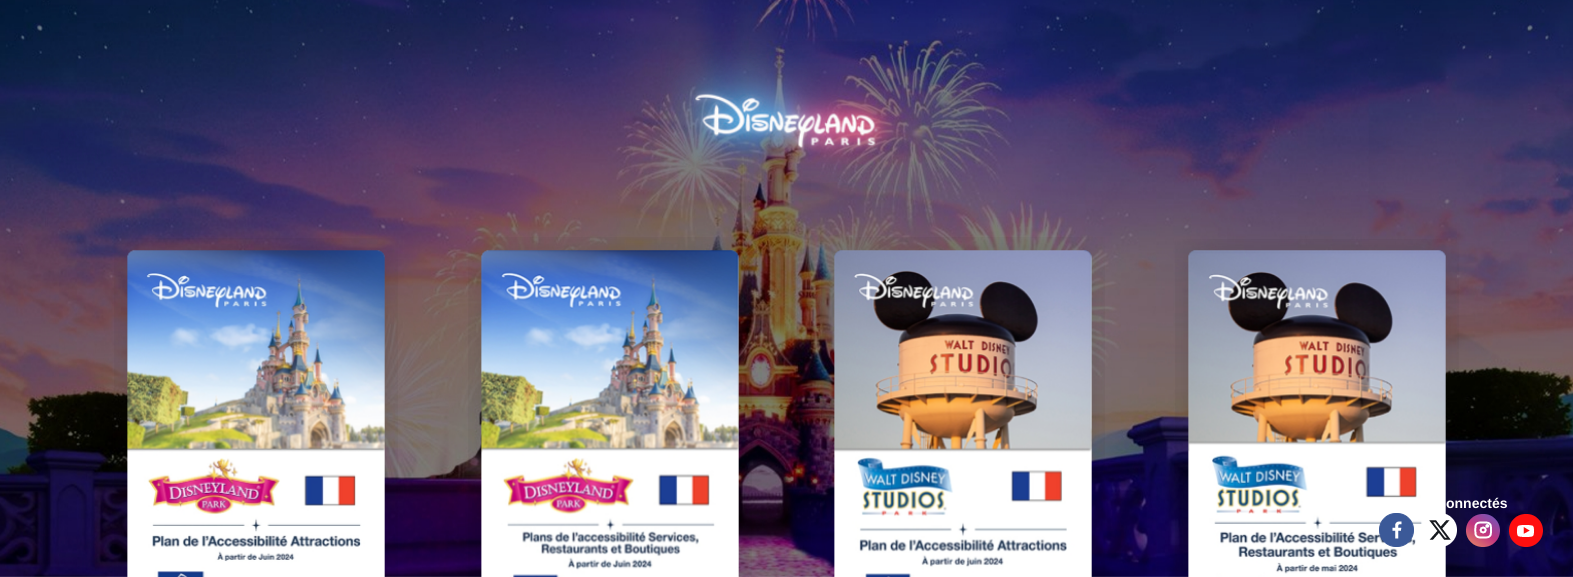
import math
import cairocffi as cairo

surface = cairo.ImageSurface(cairo.FORMAT_RGB24, 1573, 577)
cr = cairo.Context(surface)
options = cairo.FontOptions()
options.set_hint_metrics(cairo.HINT_METRICS_OFF)
options.set_hint_style(cairo.HINT_STYLE_NONE)
cr.set_font_options(options)
cr.set_miter_limit(4)


def use_color(code):
    cr.set_source_rgb(*(v / 255 for v in bytes.fromhex(code[-6:])))


def picture(path, x, y, w, h):
    cr.save()
    cr.set_source_surface(cairo.ImageSurface.create_from_png(path), x, y)
    cr.rectangle(x, y, w, h)
    cr.fill()
    cr.restore()


use_color("#ffffff")
cr.paint()
picture("img1.png", 0, 0, 1573, 577)
picture("img2.png", 660, 39, 262, 144)
picture("img3.png", 114, 238, 284, 339)
picture("img4.png", 468, 237, 284, 340)
picture("img5.png", 821, 237, 284, 340)
picture("img6.png", 1175, 239, 284, 338)
cr.select_font_face("Liberation Sans", cairo.FONT_SLANT_NORMAL, cairo.FONT_WEIGHT_BOLD)
cr.set_font_size(14)
use_color("#ffffff")
cr.move_to(1446, 508)
cr.show_text("onnectés")
picture("img7.png", 1379, 513, 35, 34)
picture("img8.png", 1429, 513, 28, 34)
picture("img9.png", 1466, 514, 34, 33)
picture("img10.png", 1509, 514, 34, 33)
surface.write_to_png("result.png")
